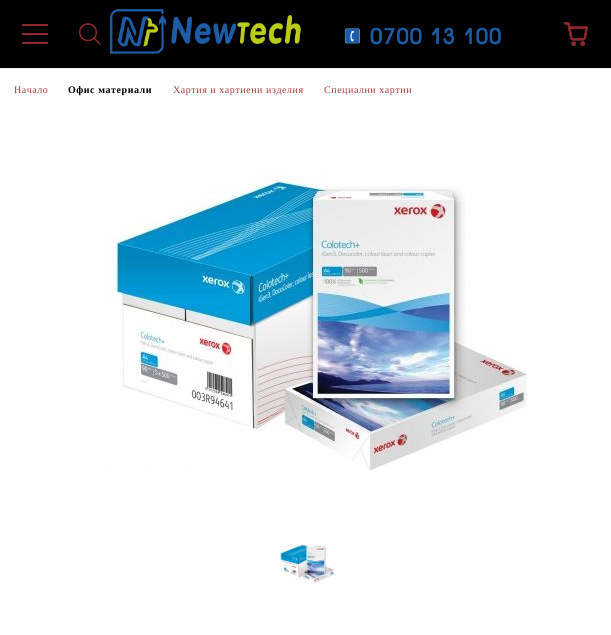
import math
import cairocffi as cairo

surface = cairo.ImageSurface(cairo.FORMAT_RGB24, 611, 635)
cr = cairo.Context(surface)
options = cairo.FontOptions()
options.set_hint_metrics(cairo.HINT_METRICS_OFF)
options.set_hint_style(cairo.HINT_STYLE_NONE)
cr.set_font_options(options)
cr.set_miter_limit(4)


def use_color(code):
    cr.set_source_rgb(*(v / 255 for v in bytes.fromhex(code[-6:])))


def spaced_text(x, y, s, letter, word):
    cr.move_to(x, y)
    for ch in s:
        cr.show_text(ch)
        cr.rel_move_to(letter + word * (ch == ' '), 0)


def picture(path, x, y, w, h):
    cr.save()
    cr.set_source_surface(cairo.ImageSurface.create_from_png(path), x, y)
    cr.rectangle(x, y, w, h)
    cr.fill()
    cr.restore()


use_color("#ffffff")
cr.paint()
use_color("#000000")
cr.rectangle(0, 0, 611, 68)
cr.fill()
use_color("#f1f1f1")
cr.rectangle(0, 68, 611, 1)
cr.fill()
use_color("#93272e")
cr.rectangle(22, 24, 26, 2)
cr.fill()
cr.rectangle(22, 33, 26, 2)
cr.fill()
cr.rectangle(22, 42, 26, 2)
cr.fill()
cr.new_path()
cr.move_to(88, 24)
cr.curve_to(77, 24, 77, 40.5, 88, 40.5)
cr.curve_to(99, 40.5, 99, 24, 88, 24)
cr.close_path()
cr.set_line_width(1.5)
cr.stroke()
cr.new_path()
cr.move_to(94, 38)
cr.line_to(100, 44)
cr.set_line_cap(cairo.LINE_CAP_ROUND)
cr.stroke()
picture("img1.png", 110, 9, 391, 45)
picture("img2.png", 563, 22, 25, 24)
cr.select_font_face("Liberation Serif")
cr.set_font_size(10)
use_color("#aa3939")
spaced_text(14, 93, "Начало", 0.55, 0)
cr.select_font_face("Liberation Serif", cairo.FONT_SLANT_NORMAL, cairo.FONT_WEIGHT_BOLD)
use_color("#000000")
spaced_text(68, 93, "Офис материали", 0.55, 0)
cr.select_font_face("Liberation Serif")
use_color("#aa3939")
spaced_text(173, 93, "Хартия и хартиени изделия", 0.55, 0)
spaced_text(324, 93, "Специални хартии", 0.55, 0)
picture("img3.png", 104, 175, 424, 296)
picture("img4.png", 280, 544, 55, 40)
surface.write_to_png("result.png")
